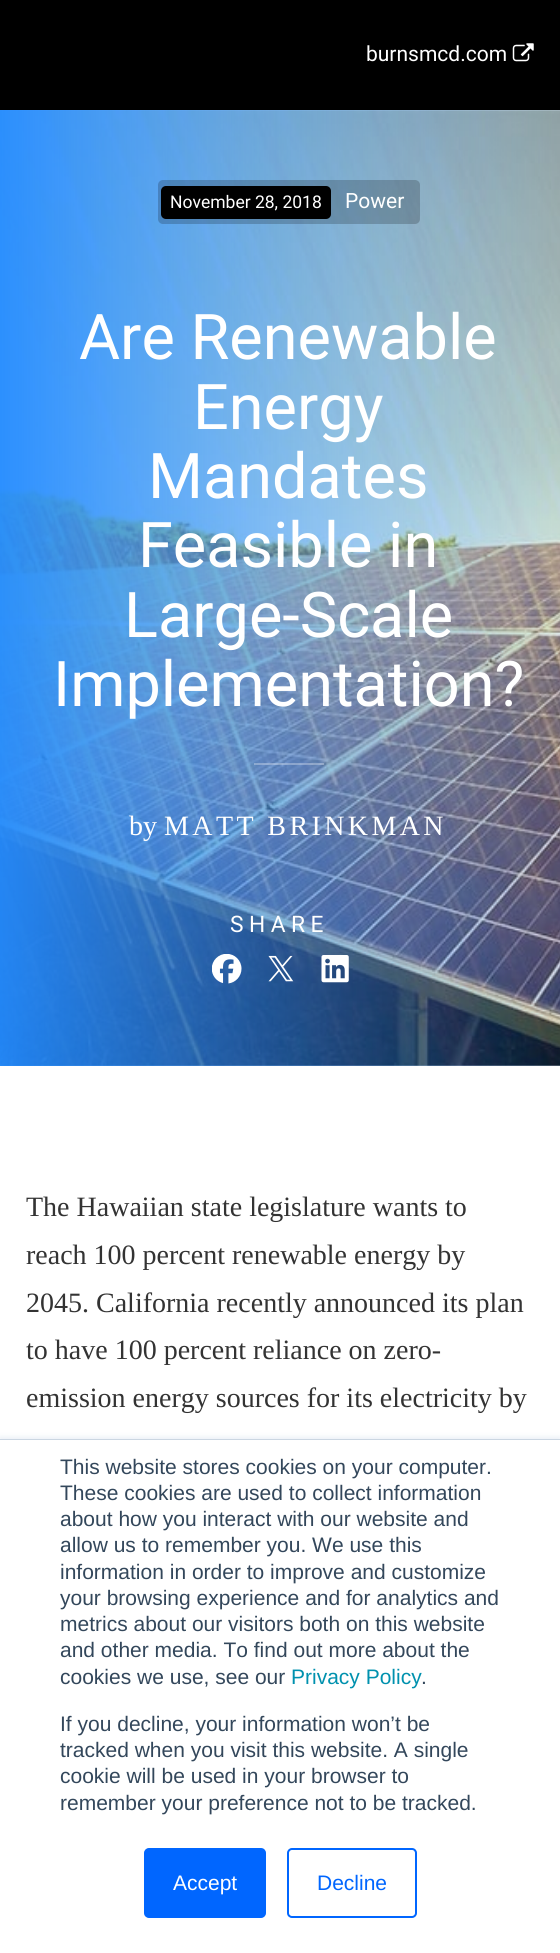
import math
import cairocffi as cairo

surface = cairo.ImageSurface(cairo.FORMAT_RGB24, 560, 1953)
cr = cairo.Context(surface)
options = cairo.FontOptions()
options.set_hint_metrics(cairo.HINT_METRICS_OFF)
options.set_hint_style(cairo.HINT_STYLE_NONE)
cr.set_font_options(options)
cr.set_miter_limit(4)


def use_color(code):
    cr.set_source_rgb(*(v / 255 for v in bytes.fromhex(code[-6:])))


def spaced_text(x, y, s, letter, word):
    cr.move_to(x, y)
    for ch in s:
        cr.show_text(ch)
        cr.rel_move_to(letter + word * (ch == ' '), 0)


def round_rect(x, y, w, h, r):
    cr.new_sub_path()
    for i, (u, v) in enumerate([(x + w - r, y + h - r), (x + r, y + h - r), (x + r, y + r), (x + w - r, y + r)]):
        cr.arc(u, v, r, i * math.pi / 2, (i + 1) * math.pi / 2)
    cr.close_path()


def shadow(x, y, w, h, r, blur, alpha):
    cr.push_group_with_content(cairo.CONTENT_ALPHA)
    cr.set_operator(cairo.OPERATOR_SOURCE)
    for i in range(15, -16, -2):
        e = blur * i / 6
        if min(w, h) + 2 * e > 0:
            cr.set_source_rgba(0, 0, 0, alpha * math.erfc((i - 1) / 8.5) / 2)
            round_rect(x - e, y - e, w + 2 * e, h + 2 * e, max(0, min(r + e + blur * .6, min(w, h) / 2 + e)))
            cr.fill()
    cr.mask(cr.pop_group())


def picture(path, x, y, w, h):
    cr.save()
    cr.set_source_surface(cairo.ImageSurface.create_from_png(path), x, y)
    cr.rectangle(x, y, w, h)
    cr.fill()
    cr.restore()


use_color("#ffffff")
cr.paint()
use_color("#000000")
cr.rectangle(0, 0, 560, 110)
cr.fill()
cr.select_font_face("Roboto")
cr.set_font_size(21)
use_color("#ffffff")
cr.move_to(366, 61)
cr.show_text("burnsmcd.com")
picture("img1.png", 512, 43, 22, 19)
picture("img2.png", 0, 110, 560, 956)
gradient = cairo.LinearGradient(0, 588, 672, 588)
gradient.add_color_stop_rgba(0, 0.129, 0.541, 1, 0.95)
gradient.add_color_stop_rgba(1, 0.129, 0.541, 1, 0)
cr.set_source(gradient)
cr.rectangle(0, 110, 560, 956)
cr.fill()
cr.set_source_rgba(0, 0, 0, 0.2)
round_rect(158, 180, 262, 44, 5)
cr.fill()
use_color("#000000")
round_rect(161, 186, 170, 33, 5)
cr.fill()
cr.set_font_size(17.5)
use_color("#ffffff")
cr.move_to(170, 208)
cr.show_text("November 28, 2018")
cr.set_font_size(21)
cr.move_to(345, 208)
cr.show_text("Power")
cr.set_font_size(63)
cr.move_to(79, 359)
cr.show_text("Are Renewable")
cr.move_to(193, 429)
cr.show_text("Energy")
cr.move_to(148, 498)
cr.show_text("Mandates")
cr.move_to(138, 567)
cr.show_text("Feasible in")
cr.move_to(124, 637)
cr.show_text("Large-Scale")
cr.move_to(53, 706)
cr.show_text("Implementation?")
cr.set_source_rgba(1, 1, 1, 0.3)
cr.rectangle(254, 763, 70, 2)
cr.fill()
cr.select_font_face("Liberation Serif")
cr.set_font_size(28)
use_color("#ffffff")
cr.move_to(129, 835)
cr.show_text("by")
spaced_text(164, 835, "MATT BRINKMAN", 3.4, 0)
cr.select_font_face("Roboto")
cr.set_font_size(22.75)
spaced_text(230, 932, "SHARE", 5.5, 0)
picture("img3.png", 212, 954, 30, 30)
picture("img4.png", 268, 955, 26, 27)
picture("img5.png", 321, 955, 28, 28)
cr.select_font_face("Liberation Serif")
cr.set_font_size(28)
use_color("#333333")
cr.move_to(26, 1216)
cr.show_text("The Hawaiian state legislature wants to")
cr.move_to(26, 1264)
cr.show_text("reach 100 percent renewable energy by")
cr.move_to(26, 1312)
cr.show_text("2045. California recently announced its plan")
cr.move_to(26, 1359)
cr.show_text("to have 100 percent reliance on zero-")
cr.move_to(26, 1407)
cr.show_text("emission energy sources for its electricity by")
use_color("#eaf0f6")
shadow(0, 1437, 560, 514, 0, 2.5, 1)
use_color("#cbd6e2")
cr.rectangle(0, 1439, 560, 1)
cr.fill()
use_color("#ffffff")
cr.rectangle(0, 1440, 560, 513)
cr.fill()
cr.select_font_face("Liberation Sans")
cr.set_font_size(21)
use_color("#33475b")
cr.move_to(60, 1474)
cr.show_text("This website stores cookies on your computer.")
cr.move_to(60, 1500)
cr.show_text("These cookies are used to collect information")
cr.move_to(60, 1526)
cr.show_text("about how you interact with our website and")
cr.move_to(60, 1552)
cr.show_text("allow us to remember you. We use this")
cr.move_to(60, 1579)
cr.show_text("information in order to improve and customize")
cr.move_to(60, 1605)
cr.show_text("your browsing experience and for analytics and")
cr.move_to(60, 1631)
cr.show_text("metrics about our visitors both on this website")
cr.move_to(60, 1657)
cr.show_text("and other media. To find out more about the")
cr.move_to(60, 1684)
cr.show_text("cookies we use, see our")
use_color("#0091ae")
cr.move_to(291, 1684)
cr.show_text("Privacy Policy")
use_color("#33475b")
cr.move_to(421, 1684)
cr.show_text(".")
cr.move_to(60, 1731)
cr.show_text("If you decline, your information won’t be")
cr.move_to(60, 1757)
cr.show_text("tracked when you visit this website. A single")
cr.move_to(60, 1783)
cr.show_text("cookie will be used in your browser to")
cr.move_to(60, 1810)
cr.show_text("remember your preference not to be tracked.")
use_color("#0066ff")
round_rect(145, 1849, 120, 68, 4)
cr.fill_preserve()
cr.stroke()
use_color("#ffffff")
cr.move_to(173, 1890)
cr.show_text("Accept")
round_rect(288, 1849, 128, 68, 4)
use_color("#0066ff")
cr.stroke()
cr.move_to(317, 1890)
cr.show_text("Decline")
surface.write_to_png("result.png")
